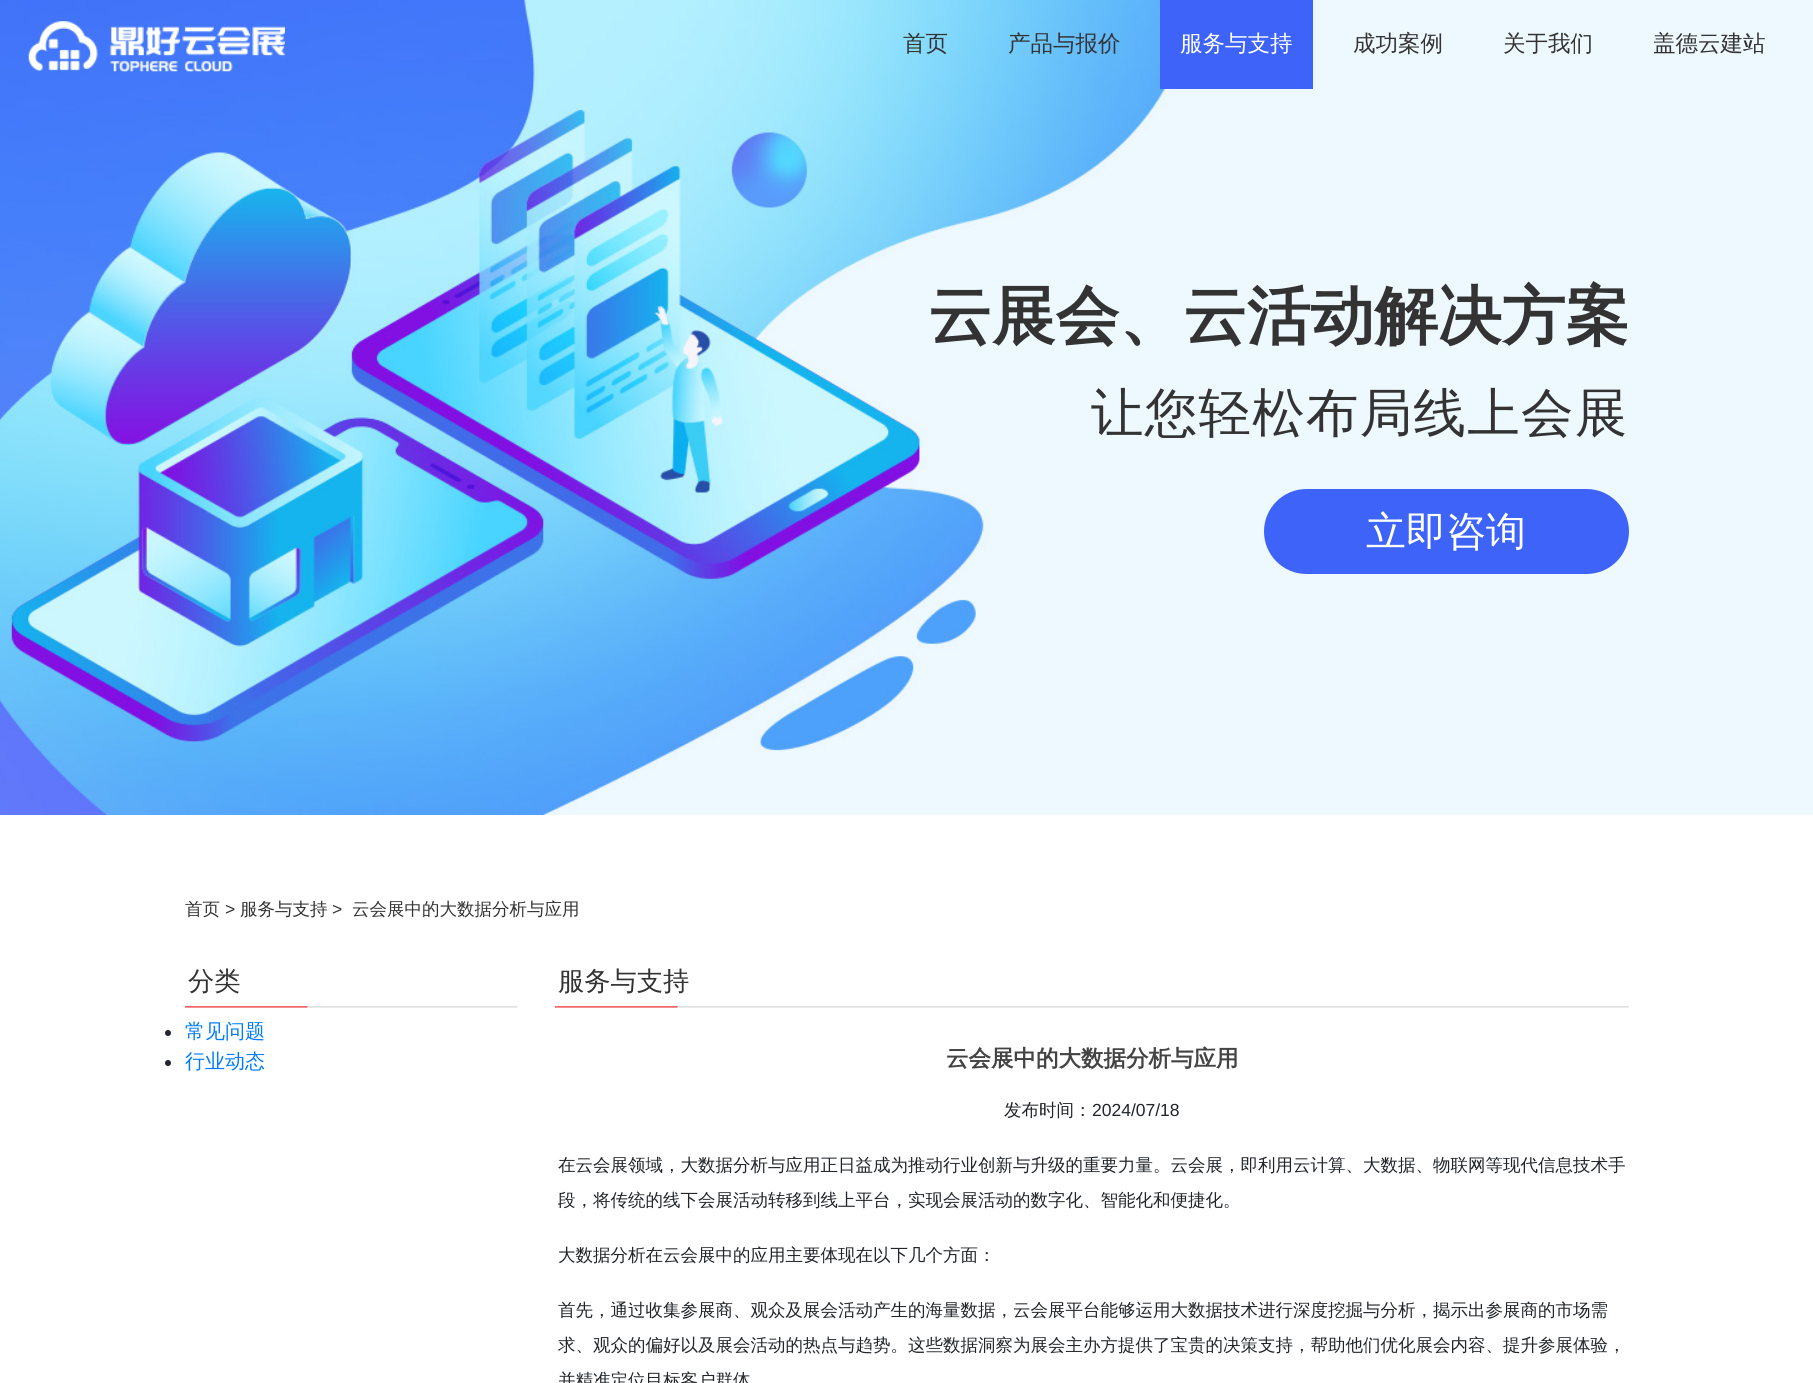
import math
import cairocffi as cairo

surface = cairo.ImageSurface(cairo.FORMAT_RGB24, 1813, 1383)
cr = cairo.Context(surface)
options = cairo.FontOptions()
options.set_hint_metrics(cairo.HINT_METRICS_OFF)
options.set_hint_style(cairo.HINT_STYLE_NONE)
cr.set_font_options(options)
cr.set_miter_limit(4)


def use_color(code):
    cr.set_source_rgb(*(v / 255 for v in bytes.fromhex(code[-6:])))


def spaced_text(x, y, s, letter, word):
    cr.move_to(x, y)
    for ch in s:
        cr.show_text(ch)
        cr.rel_move_to(letter + word * (ch == ' '), 0)


def round_rect(x, y, w, h, r):
    cr.new_sub_path()
    for i, (u, v) in enumerate([(x + w - r, y + h - r), (x + r, y + h - r), (x + r, y + r), (x + w - r, y + r)]):
        cr.arc(u, v, r, i * math.pi / 2, (i + 1) * math.pi / 2)
    cr.close_path()


def picture(path, x, y, w, h):
    cr.save()
    cr.set_source_surface(cairo.ImageSurface.create_from_png(path), x, y)
    cr.rectangle(x, y, w, h)
    cr.fill()
    cr.restore()


use_color("#ffffff")
cr.paint()
picture("img2.png", 0, 0, 1813, 815)
picture("img1.png", 28, 21, 257, 51)
cr.select_font_face("WenQuanYi Zen Hei Medium")
cr.set_font_size(22.5)
use_color("#333333")
cr.move_to(903, 51)
cr.show_text("首页")
cr.move_to(1008, 51)
cr.show_text("产品与报价")
use_color("#3e63f9")
cr.rectangle(1160, 0, 153, 89)
cr.fill()
use_color("#ffffff")
cr.move_to(1180, 51)
cr.show_text("服务与支持")
use_color("#333333")
cr.move_to(1353, 51)
cr.show_text("成功案例")
cr.move_to(1503, 51)
cr.show_text("关于我们")
cr.move_to(1653, 51)
cr.show_text("盖德云建站")
cr.select_font_face("WenQuanYi Zen Hei", cairo.FONT_SLANT_NORMAL, cairo.FONT_WEIGHT_BOLD)
cr.set_font_size(63.75)
cr.move_to(928, 338)
cr.show_text("云展会、云活动解决方案")
cr.select_font_face("WenQuanYi Zen Hei Medium")
cr.set_font_size(52.5)
spaced_text(1091, 431, "让您轻松布局线上会展", 1.25, 0)
use_color("#3e63f9")
round_rect(1264, 489, 365, 85, 42.5)
cr.fill()
cr.set_font_size(40)
use_color("#ffffff")
cr.move_to(1366, 545)
cr.show_text("立即咨询")
cr.set_font_size(17.5)
use_color("#333333")
cr.move_to(185, 915)
cr.show_text("首页")
cr.select_font_face("Liberation Sans")
cr.move_to(225, 915)
cr.show_text(">")
cr.select_font_face("WenQuanYi Zen Hei Medium")
cr.move_to(240, 915)
cr.show_text("服务与支持")
cr.select_font_face("Liberation Sans")
cr.move_to(332, 915)
cr.show_text(">")
cr.select_font_face("WenQuanYi Zen Hei Medium")
cr.move_to(352, 915)
cr.show_text("云会展中的大数据分析与应用")
picture("img3.png", 185, 1004, 333, 4)
cr.set_font_size(26.25)
cr.move_to(188, 990)
cr.show_text("分类")
use_color("#212529")
cr.new_path()
cr.arc(168, 1033, 3, 0, 2 * math.pi)
cr.fill()
cr.set_font_size(20)
use_color("#007bff")
cr.move_to(185, 1038)
cr.show_text("常见问题")
use_color("#212529")
cr.new_path()
cr.arc(168, 1063, 3, 0, 2 * math.pi)
cr.fill()
use_color("#007bff")
cr.move_to(185, 1068)
cr.show_text("行业动态")
picture("img4.png", 555, 1004, 1074, 4)
cr.set_font_size(26.25)
use_color("#333333")
cr.move_to(558, 990)
cr.show_text("服务与支持")
cr.select_font_face("WenQuanYi Zen Hei", cairo.FONT_SLANT_NORMAL, cairo.FONT_WEIGHT_BOLD)
cr.set_font_size(22.5)
use_color("#434343")
cr.move_to(946, 1066)
cr.show_text("云会展中的大数据分析与应用")
cr.select_font_face("WenQuanYi Zen Hei Medium")
cr.set_font_size(17.5)
use_color("#212529")
cr.move_to(1004, 1116)
cr.show_text("发布时间：")
cr.select_font_face("Liberation Sans")
cr.move_to(1092, 1116)
cr.show_text("2024/07/18")
cr.select_font_face("WenQuanYi Zen Hei Medium")
cr.move_to(558, 1171)
cr.show_text("在云会展领域，大数据分析与应用正日益成为推动行业创新与升级的重要力量。云会展，即利用云计算、大数据、物联网等现代信息技术手")
cr.move_to(558, 1206)
cr.show_text("段，将传统的线下会展活动转移到线上平台，实现会展活动的数字化、智能化和便捷化。")
cr.move_to(558, 1261)
cr.show_text("大数据分析在云会展中的应用主要体现在以下几个方面：")
cr.move_to(558, 1316)
cr.show_text("首先，通过收集参展商、观众及展会活动产生的海量数据，云会展平台能够运用大数据技术进行深度挖掘与分析，揭示出参展商的市场需")
cr.move_to(558, 1351)
cr.show_text("求、观众的偏好以及展会活动的热点与趋势。这些数据洞察为展会主办方提供了宝贵的决策支持，帮助他们优化展会内容、提升参展体验，")
cr.move_to(558, 1386)
cr.show_text("并精准定位目标客户群体")
surface.write_to_png("result.png")
